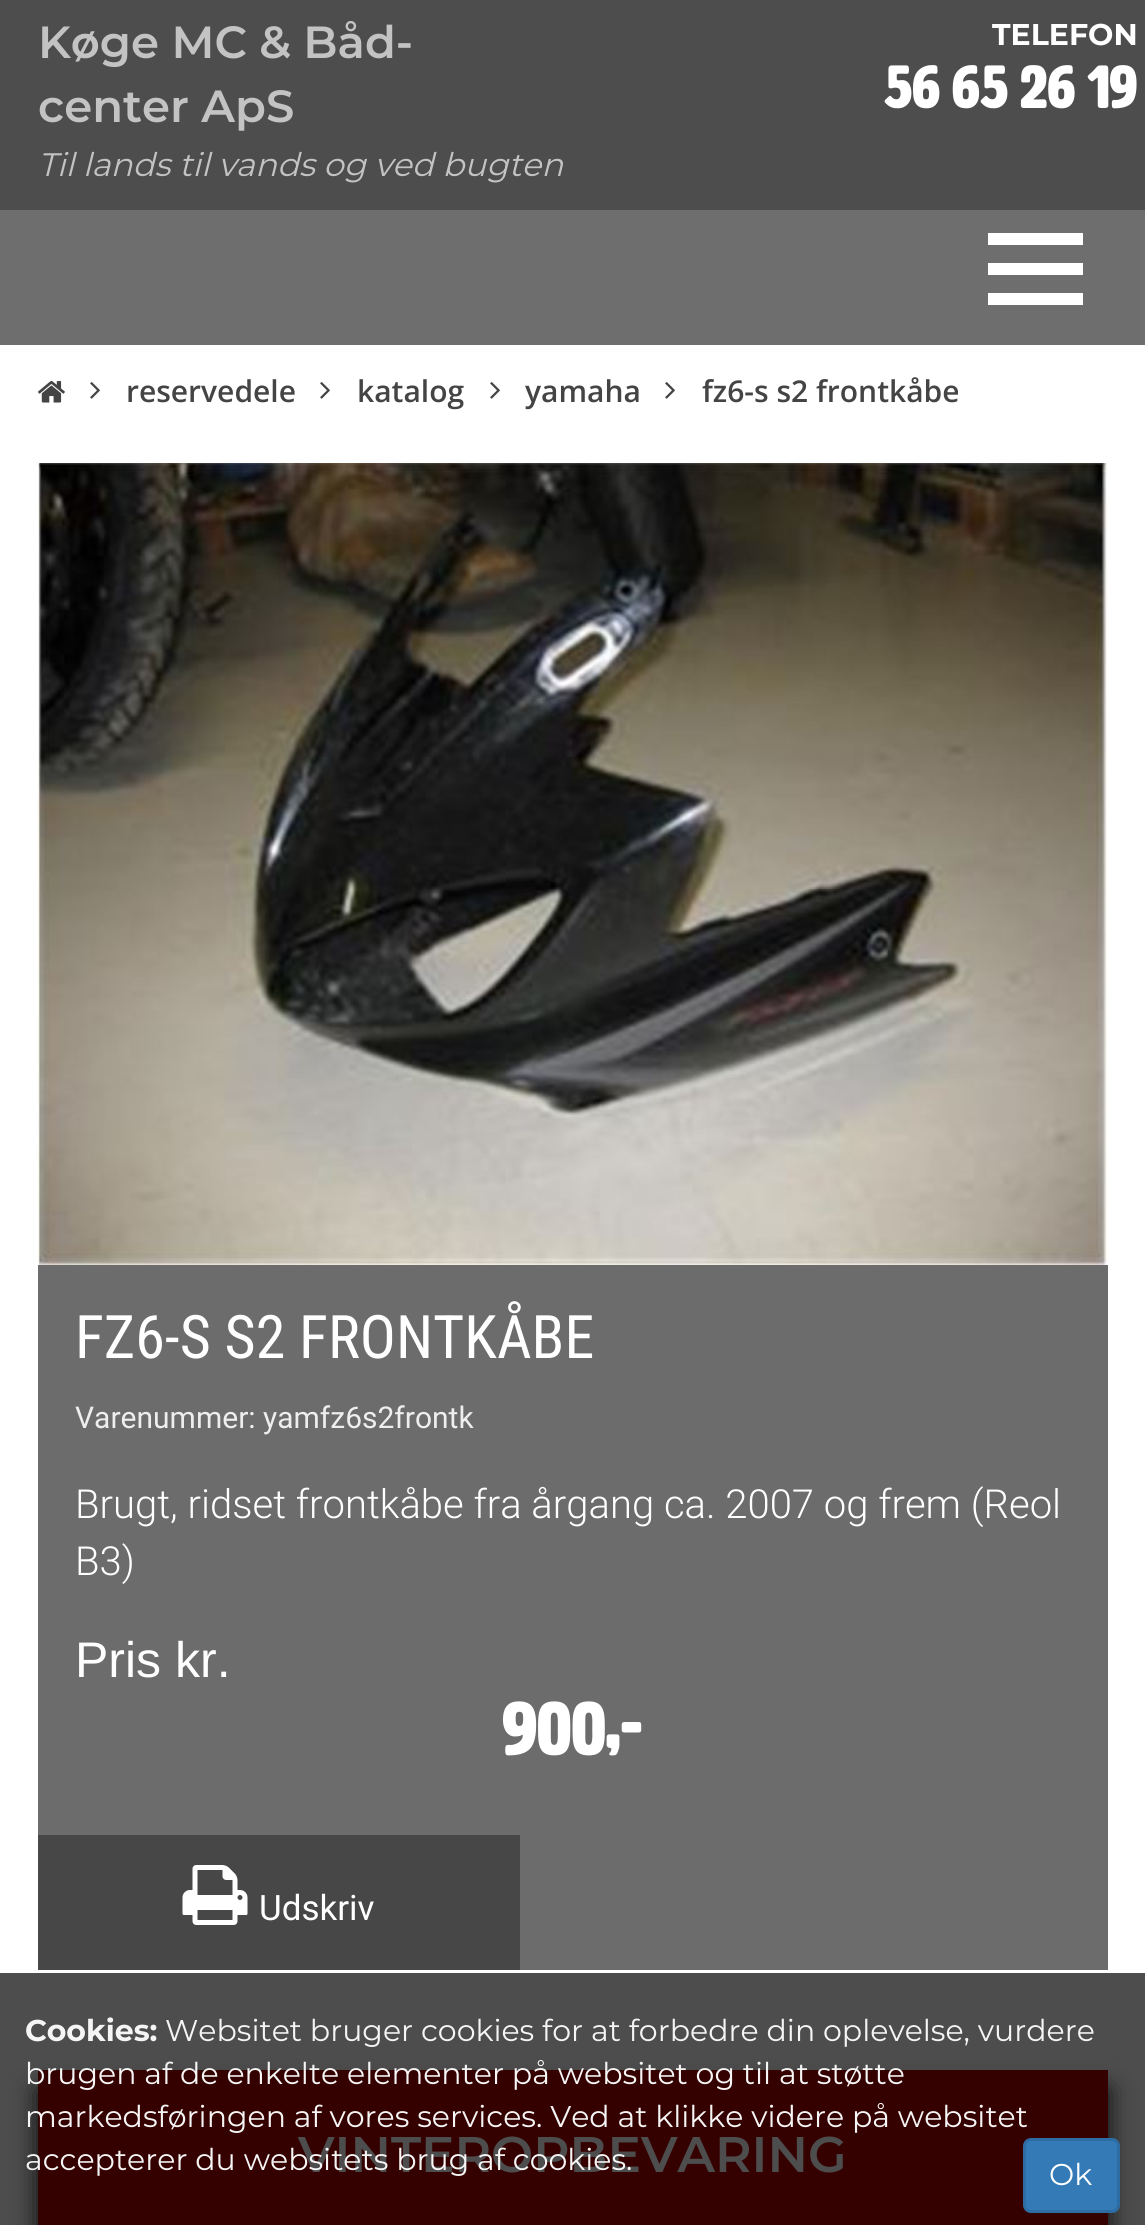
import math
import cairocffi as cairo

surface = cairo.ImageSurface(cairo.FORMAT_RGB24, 1145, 2225)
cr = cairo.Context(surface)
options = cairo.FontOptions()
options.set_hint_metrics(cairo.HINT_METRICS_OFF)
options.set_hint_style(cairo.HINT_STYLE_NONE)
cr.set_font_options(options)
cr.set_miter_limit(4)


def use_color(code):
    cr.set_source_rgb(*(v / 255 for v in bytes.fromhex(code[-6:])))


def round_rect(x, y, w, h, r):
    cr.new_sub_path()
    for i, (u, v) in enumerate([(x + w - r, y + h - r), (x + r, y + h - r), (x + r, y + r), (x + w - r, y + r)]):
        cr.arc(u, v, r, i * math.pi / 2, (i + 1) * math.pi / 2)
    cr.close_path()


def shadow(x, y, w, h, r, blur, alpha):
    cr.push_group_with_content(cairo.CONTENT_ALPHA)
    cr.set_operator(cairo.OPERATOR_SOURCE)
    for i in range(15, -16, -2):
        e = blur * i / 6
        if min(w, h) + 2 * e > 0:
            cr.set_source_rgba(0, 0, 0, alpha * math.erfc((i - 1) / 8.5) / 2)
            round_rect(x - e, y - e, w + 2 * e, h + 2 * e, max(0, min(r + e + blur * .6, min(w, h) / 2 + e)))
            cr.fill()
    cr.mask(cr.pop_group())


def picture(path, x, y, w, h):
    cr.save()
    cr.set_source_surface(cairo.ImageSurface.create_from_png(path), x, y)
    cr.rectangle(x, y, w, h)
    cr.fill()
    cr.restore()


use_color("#ffffff")
cr.paint()
use_color("#4d4d4d")
cr.rectangle(0, 1973, 1145, 252)
cr.fill()
cr.rectangle(0, 0, 1145, 210)
cr.fill()
cr.select_font_face("Montserrat SemiBold")
cr.set_font_size(45)
use_color("#c3c3c3")
cr.move_to(38, 58)
cr.show_text("Køge MC & Båd-")
cr.move_to(38, 122)
cr.show_text("center ApS")
cr.select_font_face("Montserrat", cairo.FONT_SLANT_ITALIC)
cr.set_font_size(32.5)
cr.move_to(38, 176)
cr.show_text("Til lands til vands og ved bugten")
cr.select_font_face("Montserrat", cairo.FONT_SLANT_NORMAL, cairo.FONT_WEIGHT_BOLD)
cr.set_font_size(30)
use_color("#ffffff")
cr.move_to(992, 45)
cr.show_text("TELEFON")
cr.select_font_face("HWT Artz", cairo.FONT_SLANT_NORMAL, cairo.FONT_WEIGHT_BOLD)
cr.set_font_size(60)
cr.move_to(884, 108)
cr.show_text("56 65 26 19")
use_color("#6e6e6e")
cr.rectangle(0, 210, 1145, 135)
cr.fill()
use_color("#ffffff")
cr.rectangle(988, 233, 95, 12)
cr.fill()
cr.rectangle(988, 263, 95, 12)
cr.fill()
cr.rectangle(988, 293, 95, 12)
cr.fill()
picture("img1.png", 38, 381, 27, 22)
picture("img2.png", 90, 382, 10, 17)
cr.select_font_face("Open Sans SemiBold")
cr.set_font_size(30)
use_color("#444444")
cr.move_to(126, 402)
cr.show_text("reservedele")
picture("img2.png", 320, 382, 10, 17)
cr.move_to(357, 402)
cr.show_text("katalog")
picture("img2.png", 490, 382, 10, 17)
cr.move_to(525, 402)
cr.show_text("yamaha")
picture("img2.png", 665, 382, 10, 17)
cr.move_to(702, 402)
cr.show_text("fz6-s s2 frontkåbe")
picture("img3.png", 38, 463, 1070, 802)
use_color("#6c6c6c")
cr.rectangle(38, 1265, 1070, 705)
cr.fill()
cr.select_font_face("Roboto Condensed")
cr.set_font_size(60)
use_color("#ffffff")
cr.move_to(75, 1358)
cr.show_text("FZ6-S S2 FRONTKÅBE")
cr.select_font_face("Roboto")
cr.set_font_size(30)
use_color("#eeeeee")
cr.move_to(75, 1428)
cr.show_text("Varenummer: yamfz6s2frontk")
cr.select_font_face("Roboto Light")
cr.set_font_size(40)
use_color("#ffffff")
cr.move_to(75, 1518)
cr.show_text("Brugt, ridset frontkåbe fra årgang ca. 2007 og frem (Reol")
cr.move_to(75, 1575)
cr.show_text("B3)")
cr.select_font_face("Liberation Sans")
cr.set_font_size(50)
cr.move_to(75, 1677)
cr.show_text("Pris kr.")
cr.select_font_face("HWT Artz", cairo.FONT_SLANT_NORMAL, cairo.FONT_WEIGHT_BOLD)
cr.set_font_size(75)
cr.move_to(502, 1755)
cr.show_text("900,-")
use_color("#474747")
cr.rectangle(38, 1835, 482, 135)
cr.fill()
picture("img4.png", 182, 1865, 66, 60)
cr.select_font_face("Roboto")
cr.set_font_size(35)
use_color("#ffffff")
cr.move_to(259, 1920)
cr.show_text("Udskriv")
cr.select_font_face("Montserrat", cairo.FONT_SLANT_NORMAL, cairo.FONT_WEIGHT_BOLD)
cr.set_font_size(30)
use_color("#f5f5f5")
cr.move_to(25, 2041)
cr.show_text("Cookies:")
cr.select_font_face("Montserrat")
cr.move_to(165, 2041)
cr.show_text("Websitet bruger cookies for at forbedre din oplevelse, vurdere")
use_color("#000000")
shadow(38, 2090, 1070, 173, 0, 12.5, 0.87)
use_color("#350000")
cr.rectangle(38, 2070, 1070, 155)
cr.fill()
use_color("#f5f5f5")
cr.move_to(25, 2084)
cr.show_text("brugen af de enkelte elementer på websitet og til at støtte")
cr.move_to(25, 2127)
cr.show_text("markedsføringen af vores services. Ved at klikke videre på websitet")
cr.select_font_face("Montserrat SemiBold")
cr.set_font_size(50)
use_color("#4d4d4d")
cr.move_to(298, 2172)
cr.show_text("VINTEROPBEVARING")
cr.select_font_face("Montserrat")
cr.set_font_size(30)
use_color("#f5f5f5")
cr.move_to(25, 2170)
cr.show_text("accepterer du websitets brug af cookies.")
use_color("#337ab7")
round_rect(1024.5, 2139.5, 94, 72, 6.5)
cr.fill_preserve()
use_color("#2e6da4")
cr.set_line_width(3)
cr.stroke()
use_color("#ffffff")
cr.move_to(1049, 2185)
cr.show_text("Ok")
surface.write_to_png("result.png")
